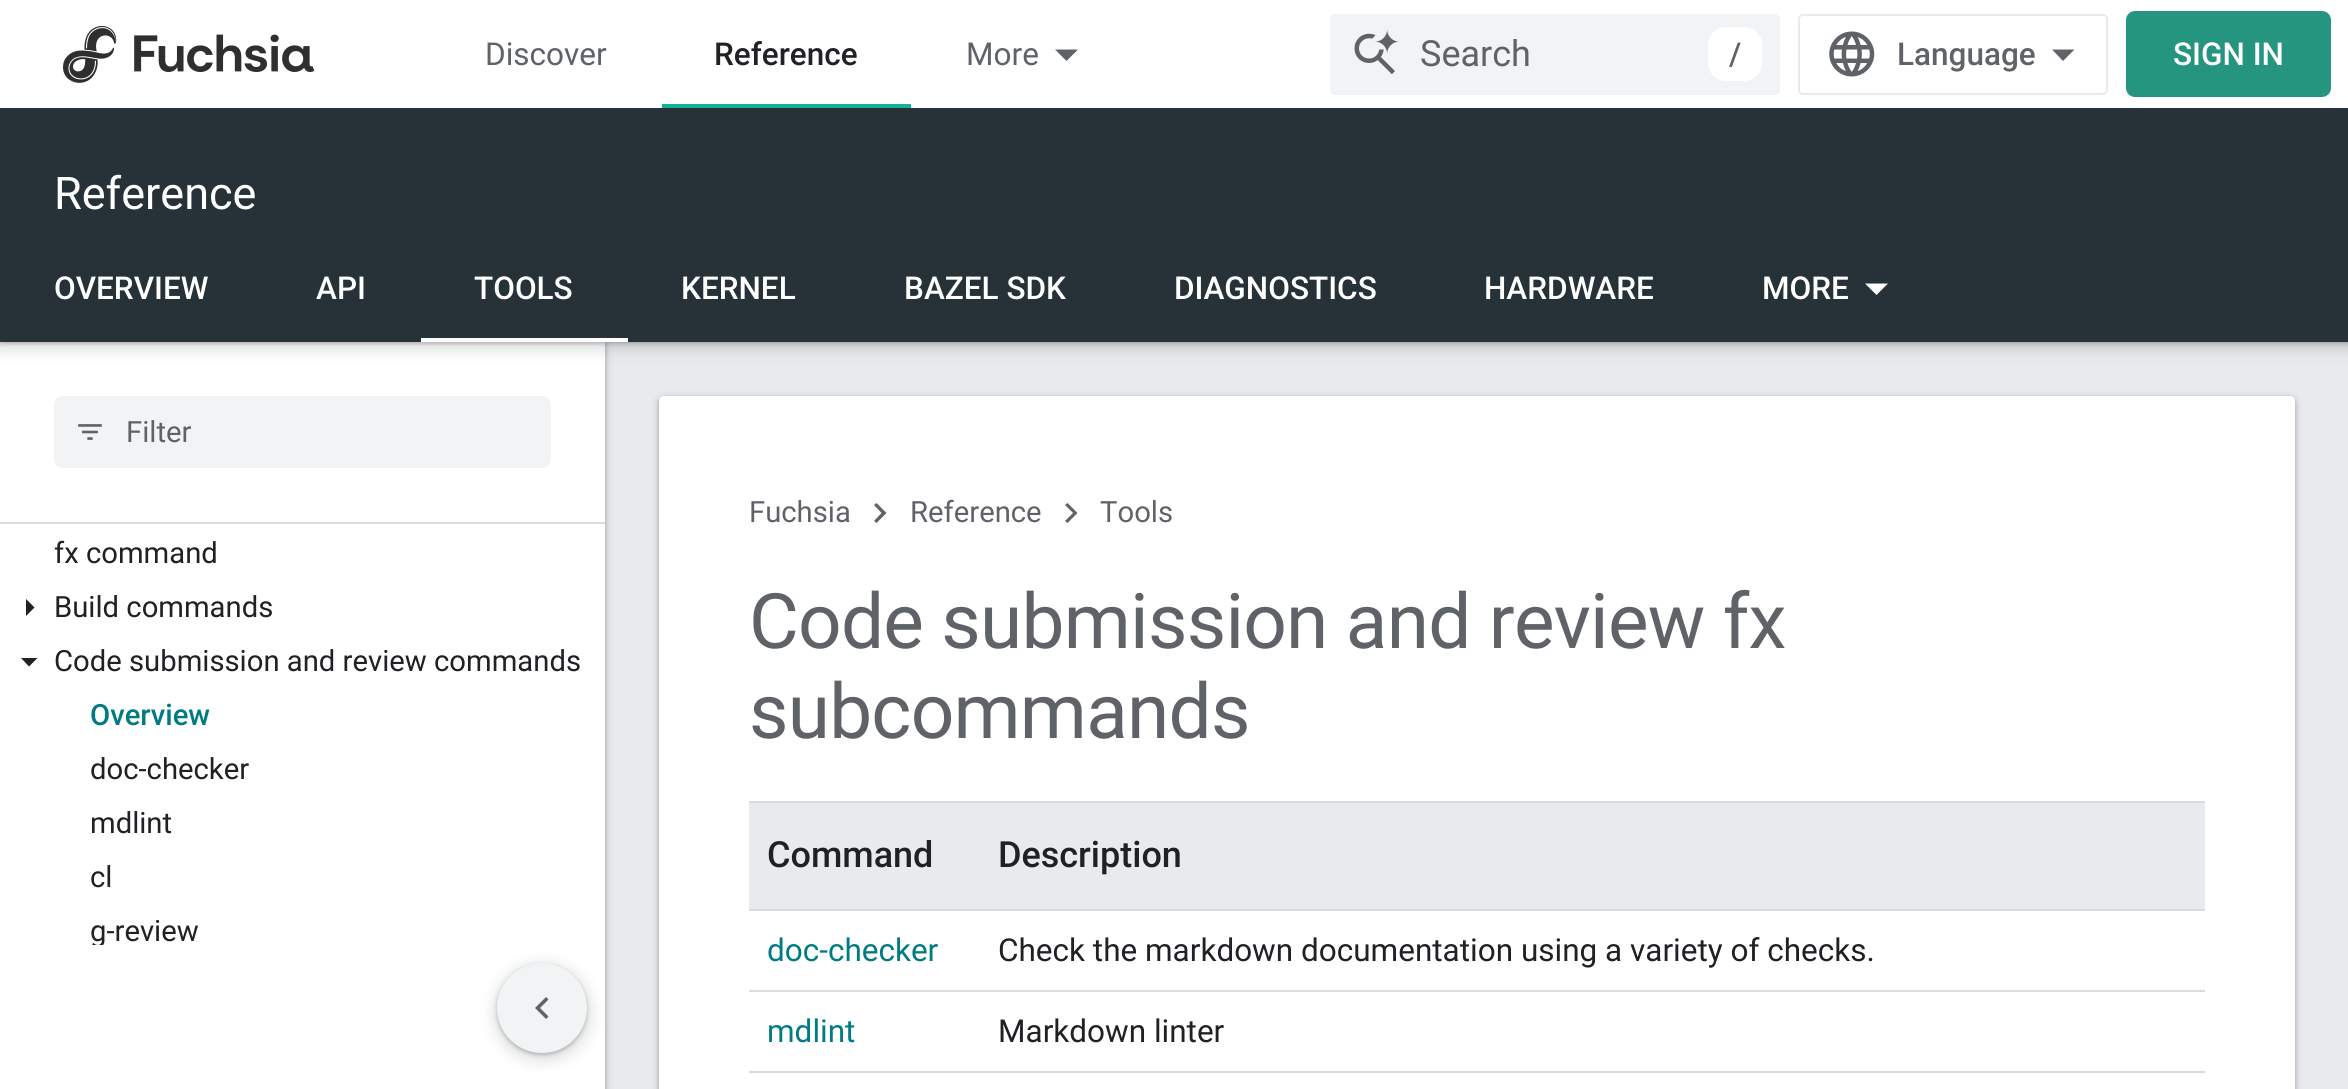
import math
import cairocffi as cairo

surface = cairo.ImageSurface(cairo.FORMAT_RGB24, 2348, 1089)
cr = cairo.Context(surface)
options = cairo.FontOptions()
options.set_hint_metrics(cairo.HINT_METRICS_OFF)
options.set_hint_style(cairo.HINT_STYLE_NONE)
cr.set_font_options(options)
cr.set_miter_limit(4)


def use_color(code):
    cr.set_source_rgb(*(v / 255 for v in bytes.fromhex(code[-6:])))


def spaced_text(x, y, s, letter, word):
    cr.move_to(x, y)
    for ch in s:
        cr.show_text(ch)
        cr.rel_move_to(letter + word * (ch == ' '), 0)


def round_rect(x, y, w, h, r):
    cr.new_sub_path()
    for i, (u, v) in enumerate([(x + w - r, y + h - r), (x + r, y + h - r), (x + r, y + r), (x + w - r, y + r)]):
        cr.arc(u, v, r, i * math.pi / 2, (i + 1) * math.pi / 2)
    cr.close_path()


def shadow(x, y, w, h, r, blur, alpha):
    cr.push_group_with_content(cairo.CONTENT_ALPHA)
    cr.set_operator(cairo.OPERATOR_SOURCE)
    for i in range(15, -16, -2):
        e = blur * i / 6
        if min(w, h) + 2 * e > 0:
            cr.set_source_rgba(0, 0, 0, alpha * math.erfc((i - 1) / 8.5) / 2)
            round_rect(x - e, y - e, w + 2 * e, h + 2 * e, max(0, min(r + e + blur * .6, min(w, h) / 2 + e)))
            cr.fill()
    cr.mask(cr.pop_group())


def picture(path, x, y, w, h):
    cr.save()
    cr.set_source_surface(cairo.ImageSurface.create_from_png(path), x, y)
    cr.rectangle(x, y, w, h)
    cr.fill()
    cr.restore()


use_color("#e8eaed")
cr.paint()
use_color("#3c4043")
shadow(-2, 0, 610, 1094, 0, 3.5, 0.15)
shadow(0, 2, 605, 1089, 0, 2, 0.3)
use_color("#ffffff")
cr.rectangle(0, 524, 605, 421)
cr.fill()
cr.rectangle(0, 342, 605, 180)
cr.fill()
use_color("#3c4043")
shadow(-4, 108, 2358, 243, 0, 7, 0.15)
shadow(0, 110, 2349, 234, 0, 2, 0.3)
use_color("#ffffff")
cr.rectangle(0, 0, 2348, 108)
cr.fill()
picture("img1.png", 63, 26, 252, 57)
cr.select_font_face("Roboto")
cr.set_font_size(31.5)
use_color("#5f6368")
cr.move_to(485, 65)
cr.show_text("Discover")
cr.select_font_face("Roboto Medium")
use_color("#202124")
cr.move_to(714, 65)
cr.show_text("Reference")
use_color("#13b294")
cr.rectangle(662, 104, 249, 4)
cr.fill()
cr.select_font_face("Roboto")
use_color("#5f6368")
cr.move_to(966, 65)
cr.show_text("More")
cr.new_path()
cr.move_to(1055, 49.5)
cr.line_to(1078, 49.5)
cr.line_to(1066.5, 61)
cr.close_path()
cr.fill()
use_color("#f1f3f4")
round_rect(1330, 14, 450, 81, 5)
cr.fill()
picture("img2.png", 1354, 29, 46, 46)
cr.set_font_size(36)
use_color("#5f6368")
cr.move_to(1420, 66)
cr.show_text("Search")
use_color("#ffffff")
round_rect(1708, 27, 54, 54, 18)
cr.fill()
cr.select_font_face("Roboto Medium")
cr.set_font_size(31.5)
use_color("#5f6368")
cr.move_to(1729, 65)
cr.show_text("/")
round_rect(1799, 15, 308, 79, 4)
use_color("#e8eaed")
cr.stroke()
picture("img3.png", 1829, 31, 46, 46)
use_color("#5f6368")
cr.move_to(1897, 65)
cr.show_text("Language")
cr.new_path()
cr.move_to(2063, 61)
cr.line_to(2052, 49.5)
cr.line_to(2074.5, 49.5)
cr.close_path()
cr.fill()
use_color("#269580")
round_rect(2126, 11, 205, 86, 9)
cr.fill()
use_color("#ffffff")
cr.move_to(2173, 65)
cr.show_text("SIGN IN")
use_color("#263238")
cr.rectangle(0, 108, 2348, 234)
cr.fill()
cr.select_font_face("Roboto")
cr.set_font_size(45)
use_color("#ffffff")
cr.move_to(54, 209)
cr.show_text("Reference")
cr.select_font_face("Roboto Medium")
cr.set_font_size(31.5)
cr.move_to(54, 299)
cr.show_text("OVERVIEW")
cr.move_to(316, 299)
cr.show_text("API")
cr.move_to(474, 299)
cr.show_text("TOOLS")
cr.rectangle(421, 338, 207, 4)
cr.fill()
cr.move_to(681, 299)
cr.show_text("KERNEL")
cr.move_to(904, 299)
cr.show_text("BAZEL SDK")
cr.move_to(1174, 299)
cr.show_text("DIAGNOSTICS")
cr.move_to(1484, 299)
cr.show_text("HARDWARE")
cr.move_to(1762, 299)
cr.show_text("MORE")
cr.new_path()
cr.move_to(1865, 283.5)
cr.line_to(1888, 283.5)
cr.line_to(1876.5, 295)
cr.close_path()
cr.fill()
use_color("#dadce0")
cr.rectangle(0, 522, 605, 2)
cr.fill()
use_color("#f1f3f4")
round_rect(54, 396, 497, 72, 9)
cr.fill()
picture("img4.png", 78, 424, 24, 16)
cr.select_font_face("Roboto")
cr.set_font_size(29.25)
use_color("#5f6368")
cr.move_to(126, 442)
cr.show_text("Filter")
use_color("#202124")
cr.move_to(54, 563)
cr.show_text("fx command")
cr.new_path()
cr.move_to(26, 616)
cr.line_to(26, 599)
cr.line_to(34.5, 607.5)
cr.close_path()
cr.fill()
cr.move_to(54, 617)
cr.show_text("Build commands")
cr.new_path()
cr.move_to(21, 658)
cr.line_to(37.5, 658)
cr.line_to(29, 666.5)
cr.close_path()
cr.fill()
cr.move_to(54, 671)
cr.show_text("Code submission and review commands")
cr.select_font_face("Roboto Medium")
use_color("#007b83")
cr.move_to(90, 725)
cr.show_text("Overview")
cr.select_font_face("Roboto")
use_color("#202124")
cr.move_to(90, 779)
cr.show_text("doc-checker")
cr.move_to(90, 833)
cr.show_text("mdlint")
cr.move_to(90, 887)
cr.show_text("cl")
cr.move_to(90, 941)
cr.show_text("g-review")
use_color("#3c4043")
shadow(657, 396, 1640, 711, 7, 3.5, 0.15)
shadow(659, 398, 1636, 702, 5, 2, 0.3)
use_color("#ffffff")
round_rect(659, 396, 1636, 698, 5)
cr.fill()
use_color("#5f6368")
cr.move_to(749, 522)
cr.show_text("Fuchsia")
cr.new_path()
cr.move_to(876.5, 503)
cr.line_to(886.5, 513)
cr.line_to(876.5, 523)
cr.line_to(874, 521)
cr.line_to(881.5, 513)
cr.line_to(874, 505)
cr.close_path()
cr.fill()
cr.move_to(910, 522)
cr.show_text("Reference")
cr.new_path()
cr.move_to(1067.5, 503)
cr.line_to(1077.5, 513)
cr.line_to(1067.5, 523)
cr.line_to(1065, 521)
cr.line_to(1073, 513)
cr.line_to(1065, 505)
cr.close_path()
cr.fill()
cr.move_to(1100, 522)
cr.show_text("Tools")
cr.set_font_size(76.5)
spaced_text(749, 648, "Code submission and review fx", -0.75, 0)
spaced_text(749, 738, "subcommands", -0.75, 0)
use_color("#dadce0")
cr.rectangle(749, 801, 1456, 2)
cr.fill()
use_color("#e8eaed")
cr.rectangle(749, 803, 1456, 106)
cr.fill()
cr.select_font_face("Roboto Medium")
cr.set_font_size(36)
use_color("#202124")
cr.move_to(767, 867)
cr.show_text("Command")
cr.move_to(998, 867)
cr.show_text("Description")
use_color("#dadce0")
cr.rectangle(749, 909, 1456, 2)
cr.fill()
cr.rectangle(749, 990, 1456, 2)
cr.fill()
cr.select_font_face("Roboto")
cr.set_font_size(31.5)
use_color("#007b83")
cr.move_to(767, 961)
cr.show_text("doc-checker")
use_color("#202124")
cr.move_to(998, 961)
cr.show_text("Check the markdown documentation using a variety of checks.")
use_color("#dadce0")
cr.rectangle(749, 1071, 1456, 2)
cr.fill()
use_color("#007b83")
cr.move_to(767, 1042)
cr.show_text("mdlint")
use_color("#202124")
cr.move_to(998, 1042)
cr.show_text("Markdown linter")
use_color("#ffffff")
cr.rectangle(0, 945, 605, 144)
cr.fill()
use_color("#3c4043")
shadow(493, 963, 99, 99, 49.5, 7, 0.15)
shadow(497, 965, 90, 90, 45, 2, 0.3)
use_color("#f1f3f4")
cr.arc(542, 1008, 45, 0, 2 * math.pi)
cr.fill()
use_color("#5f6368")
cr.new_path()
cr.move_to(548.5, 999.5)
cr.line_to(540, 1008)
cr.line_to(548.5, 1016.5)
cr.line_to(546, 1019)
cr.line_to(535, 1008)
cr.line_to(546, 997)
cr.close_path()
cr.fill()
surface.write_to_png("result.png")
